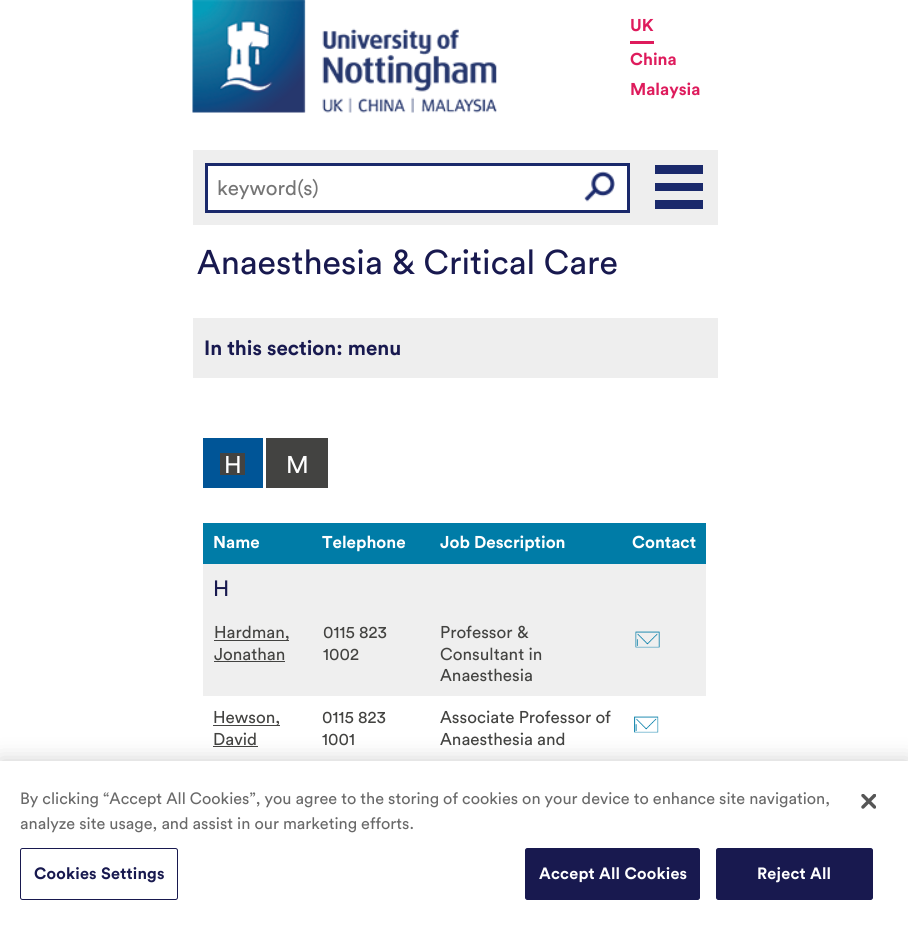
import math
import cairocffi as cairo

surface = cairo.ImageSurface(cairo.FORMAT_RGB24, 908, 925)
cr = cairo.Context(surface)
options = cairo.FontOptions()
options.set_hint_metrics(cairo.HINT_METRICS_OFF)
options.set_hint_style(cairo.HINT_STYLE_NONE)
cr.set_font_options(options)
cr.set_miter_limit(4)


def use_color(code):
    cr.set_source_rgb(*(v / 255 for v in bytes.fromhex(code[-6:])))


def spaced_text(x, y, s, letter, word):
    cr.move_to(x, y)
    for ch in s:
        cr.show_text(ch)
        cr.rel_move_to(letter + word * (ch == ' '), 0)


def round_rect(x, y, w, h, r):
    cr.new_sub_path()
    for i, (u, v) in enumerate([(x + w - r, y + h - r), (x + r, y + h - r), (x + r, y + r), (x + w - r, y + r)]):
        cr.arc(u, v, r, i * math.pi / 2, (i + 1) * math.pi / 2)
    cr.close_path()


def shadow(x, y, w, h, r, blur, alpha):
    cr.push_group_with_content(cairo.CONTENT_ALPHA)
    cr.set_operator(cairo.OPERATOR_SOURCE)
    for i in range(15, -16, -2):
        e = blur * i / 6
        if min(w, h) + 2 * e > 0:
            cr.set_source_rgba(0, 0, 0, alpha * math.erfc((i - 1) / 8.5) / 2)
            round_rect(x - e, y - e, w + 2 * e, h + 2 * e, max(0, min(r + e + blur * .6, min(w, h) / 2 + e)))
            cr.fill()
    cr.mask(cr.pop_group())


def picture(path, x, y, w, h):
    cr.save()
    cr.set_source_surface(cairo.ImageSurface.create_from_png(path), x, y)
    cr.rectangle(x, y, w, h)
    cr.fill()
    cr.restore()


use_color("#ffffff")
cr.paint()
picture("img1.png", 192, 0, 305, 113)
use_color("#de1b5c")
cr.rectangle(630, 41, 24, 3)
cr.fill()
cr.select_font_face("Circular", cairo.FONT_SLANT_NORMAL, cairo.FONT_WEIGHT_BOLD)
cr.set_font_size(17)
cr.move_to(630, 31)
cr.show_text("UK")
cr.move_to(630, 65)
cr.show_text("China")
cr.move_to(630, 95)
cr.show_text("Malaysia")
use_color("#eeeeee")
cr.rectangle(193, 150, 525, 75)
cr.fill()
use_color("#ffffff")
cr.rectangle(206.5, 164.5, 422, 47)
cr.fill_preserve()
use_color("#1a296b")
cr.set_line_width(3)
cr.stroke()
cr.select_font_face("Circular")
cr.set_font_size(20.5)
use_color("#757575")
cr.move_to(217, 195)
cr.show_text("keyword(s)")
picture("img2.png", 584, 171, 31, 31)
use_color("#1a296b")
cr.rectangle(655, 165, 48, 9)
cr.fill()
cr.rectangle(655, 183, 48, 8)
cr.fill()
cr.rectangle(655, 200, 48, 9)
cr.fill()
cr.set_font_size(34)
use_color("#18194f")
cr.move_to(197, 274)
cr.show_text("Anaesthesia & Critical Care")
use_color("#eeeeee")
cr.rectangle(193, 318, 525, 60)
cr.fill()
cr.select_font_face("Circular", cairo.FONT_SLANT_NORMAL, cairo.FONT_WEIGHT_BOLD)
cr.set_font_size(20.5)
use_color("#18194f")
cr.move_to(204, 355)
cr.show_text("In this section: menu")
use_color("#005597")
cr.rectangle(203, 438, 60, 50)
cr.fill()
use_color("#434341")
cr.rectangle(220, 453, 25, 22)
cr.fill()
cr.select_font_face("Circular")
cr.set_font_size(24)
use_color("#ffffff")
cr.move_to(224, 473)
cr.show_text("H")
use_color("#434341")
cr.rectangle(266, 438, 62, 50)
cr.fill()
use_color("#ffffff")
cr.move_to(286, 473)
cr.show_text("M")
use_color("#007ca7")
cr.rectangle(203, 523, 503, 41)
cr.fill()
cr.select_font_face("Circular", cairo.FONT_SLANT_NORMAL, cairo.FONT_WEIGHT_BOLD)
cr.set_font_size(17)
use_color("#ffffff")
cr.move_to(213, 548)
cr.show_text("Name")
cr.move_to(322, 548)
cr.show_text("Telephone")
cr.move_to(440, 548)
cr.show_text("Job Description")
cr.move_to(632, 548)
cr.show_text("Contact")
use_color("#efefef")
cr.rectangle(203, 564, 503, 47)
cr.fill()
cr.select_font_face("Circular")
cr.set_font_size(22)
use_color("#18194f")
cr.move_to(213, 596)
cr.show_text("H")
use_color("#efefef")
cr.rectangle(203, 611, 503, 85)
cr.fill()
use_color("#434341")
cr.rectangle(214, 640, 75, 1)
cr.fill()
cr.set_font_size(17)
cr.move_to(214, 638)
cr.show_text("Hardman,")
cr.move_to(214, 660)
cr.show_text("Jonathan")
cr.rectangle(214, 661, 71, 1)
cr.fill()
cr.move_to(323, 638)
cr.show_text("0115 823")
cr.move_to(323, 660)
cr.show_text("1002")
cr.move_to(440, 638)
cr.show_text("Professor &")
cr.move_to(440, 660)
cr.show_text("Consultant in")
cr.move_to(440, 681)
cr.show_text("Anaesthesia")
picture("img3.png", 635, 631, 25, 17)
cr.rectangle(213, 725, 67, 1)
cr.fill()
cr.move_to(213, 723)
cr.show_text("Hewson,")
cr.move_to(213, 745)
cr.show_text("David")
cr.rectangle(213, 746, 45, 1)
cr.fill()
cr.move_to(322, 723)
cr.show_text("0115 823")
cr.move_to(322, 745)
cr.show_text("1001")
cr.move_to(440, 723)
cr.show_text("Associate Professor of")
cr.move_to(440, 745)
cr.show_text("Anaesthesia and")
picture("img4.png", 634, 716, 25, 17)
use_color("#000000")
shadow(0, 761, 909, 164, 0, 11, 0.2)
use_color("#ffffff")
cr.rectangle(0, 761, 908, 164)
cr.fill()
cr.set_font_size(16.25)
use_color("#696969")
cr.move_to(20, 804)
cr.show_text("By clicking “Accept All Cookies”, you agree to the storing of cookies on your device to enhance site navigation,")
cr.move_to(20, 829)
cr.show_text("analyze site usage, and assist in our marketing efforts.")
round_rect(20.5, 848.5, 157, 51, 2)
use_color("#18194f")
cr.set_line_width(1)
cr.stroke()
cr.select_font_face("Circular", cairo.FONT_SLANT_NORMAL, cairo.FONT_WEIGHT_BOLD)
spaced_text(34, 879, "Cookies Settings", 0.2, 0)
round_rect(525.5, 848.5, 174, 51, 2)
cr.fill_preserve()
cr.stroke()
use_color("#ffffff")
spaced_text(539, 879, "Accept All Cookies", 0.2, 0)
use_color("#18194f")
round_rect(716.5, 848.5, 156, 51, 2)
cr.fill_preserve()
cr.stroke()
use_color("#ffffff")
spaced_text(757, 879, "Reject All", 0.2, 0)
picture("img5.png", 861, 794, 15, 15)
surface.write_to_png("result.png")
